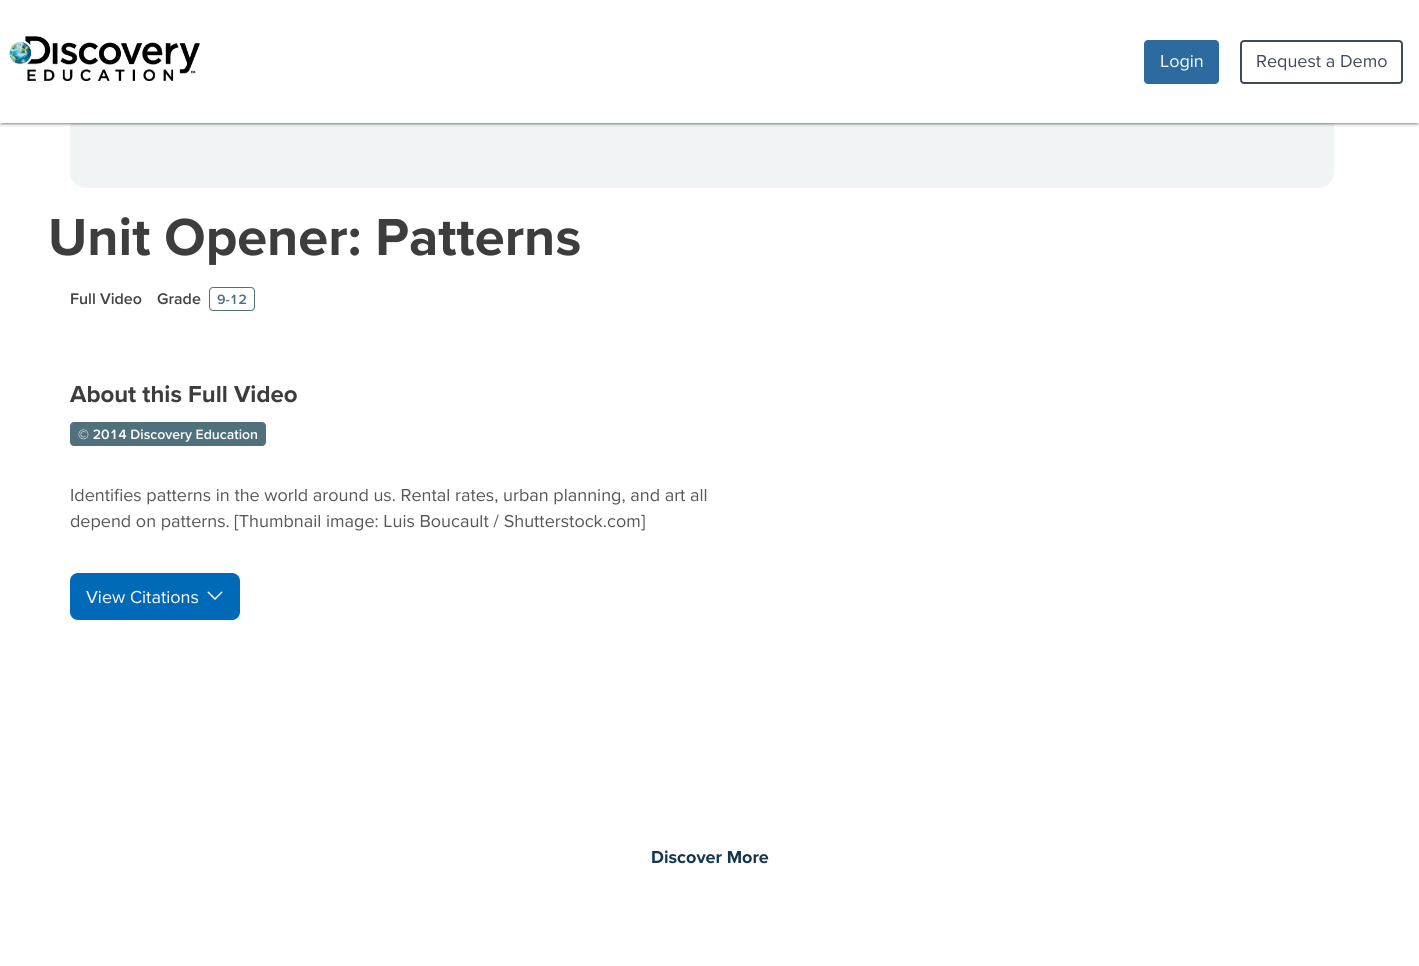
import math
import cairocffi as cairo

surface = cairo.ImageSurface(cairo.FORMAT_RGB24, 1419, 966)
cr = cairo.Context(surface)
options = cairo.FontOptions()
options.set_hint_metrics(cairo.HINT_METRICS_OFF)
options.set_hint_style(cairo.HINT_STYLE_NONE)
cr.set_font_options(options)
cr.set_miter_limit(4)


def use_color(code):
    cr.set_source_rgb(*(v / 255 for v in bytes.fromhex(code[-6:])))


def round_rect(x, y, w, h, r):
    cr.new_sub_path()
    for i, (u, v) in enumerate([(x + w - r, y + h - r), (x + r, y + h - r), (x + r, y + r), (x + w - r, y + r)]):
        cr.arc(u, v, r, i * math.pi / 2, (i + 1) * math.pi / 2)
    cr.close_path()


def shadow(x, y, w, h, r, blur, alpha):
    cr.push_group_with_content(cairo.CONTENT_ALPHA)
    cr.set_operator(cairo.OPERATOR_SOURCE)
    for i in range(15, -16, -2):
        e = blur * i / 6
        if min(w, h) + 2 * e > 0:
            cr.set_source_rgba(0, 0, 0, alpha * math.erfc((i - 1) / 8.5) / 2)
            round_rect(x - e, y - e, w + 2 * e, h + 2 * e, max(0, min(r + e + blur * .6, min(w, h) / 2 + e)))
            cr.fill()
    cr.mask(cr.pop_group())


def picture(path, x, y, w, h):
    cr.save()
    cr.set_source_surface(cairo.ImageSurface.create_from_png(path), x, y)
    cr.rectangle(x, y, w, h)
    cr.fill()
    cr.restore()


use_color("#ffffff")
cr.paint()
use_color("#f0f4f5")
round_rect(70, -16, 1264, 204, 16)
cr.fill()
use_color("#000000")
shadow(2, 5, 1415, 119, 0, 0.5, 0.2)
shadow(0, 1, 1419, 123, 0, 2.5, 0.12)
shadow(0, 2, 1419, 123, 0, 1, 0.14)
use_color("#ffffff")
cr.rectangle(0, 0, 1419, 123)
cr.fill()
picture("img1.png", 9, 36, 191, 45)
use_color("#2d6a9f")
round_rect(1144, 40, 75, 44, 4)
cr.fill()
cr.select_font_face("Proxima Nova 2")
cr.set_font_size(18)
use_color("#ffffff")
cr.move_to(1160, 67)
cr.show_text("Login")
round_rect(1241, 41, 161, 42, 3)
use_color("#414858")
cr.stroke()
cr.move_to(1256, 67)
cr.show_text("Request a Demo")
cr.select_font_face("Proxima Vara", cairo.FONT_SLANT_NORMAL, cairo.FONT_WEIGHT_BOLD)
cr.set_font_size(54)
use_color("#3d3d3d")
cr.move_to(48, 255)
cr.show_text("Unit Opener: Patterns")
cr.select_font_face("Proxima Vara SemiBold")
cr.set_font_size(16)
use_color("#444444")
cr.move_to(70, 304)
cr.show_text("Full Video")
cr.move_to(157, 304)
cr.show_text("Grade")
round_rect(209.5, 287.5, 45, 23, 3.5)
use_color("#50717c")
cr.set_line_width(1)
cr.stroke()
cr.set_font_size(14)
cr.move_to(217, 304)
cr.show_text("9-12")
cr.select_font_face("Proxima Vara", cairo.FONT_SLANT_NORMAL, cairo.FONT_WEIGHT_BOLD)
cr.set_font_size(24)
use_color("#3d3d3d")
cr.move_to(70, 402)
cr.show_text("About this Full Video")
use_color("#50717c")
round_rect(70, 422, 196, 24, 4)
cr.fill()
cr.select_font_face("Proxima Vara SemiBold")
cr.set_font_size(14)
use_color("#ffffff")
cr.move_to(78, 439)
cr.show_text("© 2014 Discovery Education")
cr.select_font_face("Proxima Vara")
cr.set_font_size(18)
use_color("#575757")
cr.move_to(70, 501)
cr.show_text("Identifies patterns in the world around us. Rental rates, urban planning, and art all")
cr.move_to(70, 527)
cr.show_text("depend on patterns. [Thumbnail image: Luis Boucault / Shutterstock.com]")
use_color("#0069b8")
round_rect(70, 573, 170, 47, 8)
cr.fill()
use_color("#ffffff")
cr.move_to(86, 603)
cr.show_text("View Citations")
picture("img2.png", 207, 591, 16, 9)
cr.select_font_face("Proxima Nova")
use_color("#163550")
cr.move_to(651, 863)
cr.show_text("Discover More")
surface.write_to_png("result.png")
